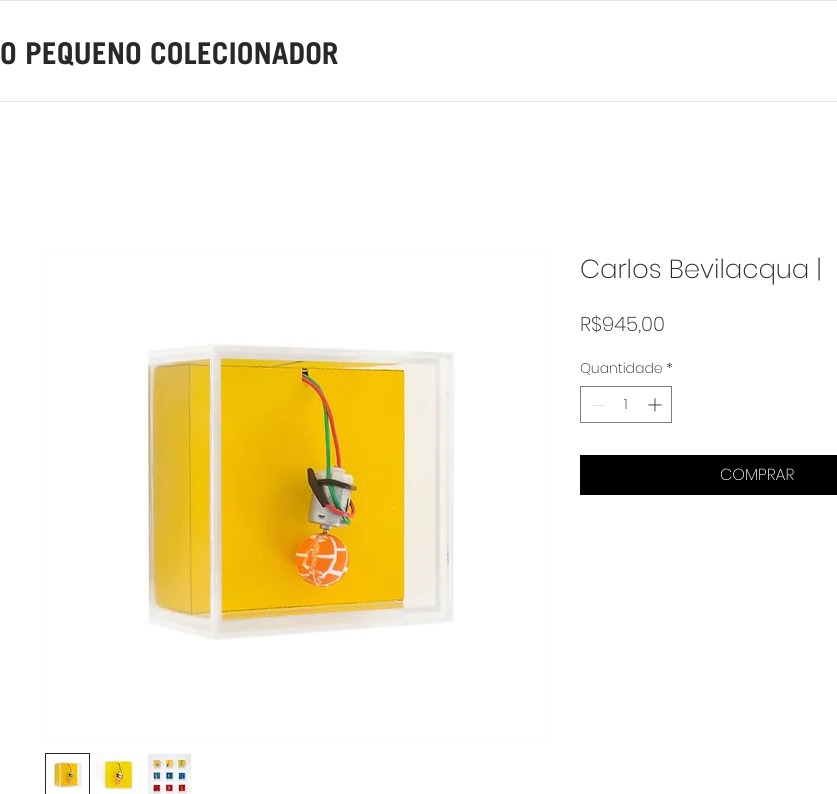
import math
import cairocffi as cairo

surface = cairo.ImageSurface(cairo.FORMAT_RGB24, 837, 794)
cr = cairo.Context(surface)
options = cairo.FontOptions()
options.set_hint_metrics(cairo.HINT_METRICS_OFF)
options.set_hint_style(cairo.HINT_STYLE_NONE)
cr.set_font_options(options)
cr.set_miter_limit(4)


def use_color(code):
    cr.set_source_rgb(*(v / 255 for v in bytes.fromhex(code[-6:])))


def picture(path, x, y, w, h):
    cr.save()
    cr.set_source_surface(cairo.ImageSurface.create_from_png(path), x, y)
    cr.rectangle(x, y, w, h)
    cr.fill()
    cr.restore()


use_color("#ffffff")
cr.paint()
use_color("#e7e7e7")
cr.rectangle(0, 0, 837, 1)
cr.fill()
cr.rectangle(0, 101, 837, 1)
cr.fill()
cr.select_font_face("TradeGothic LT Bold", cairo.FONT_SLANT_NORMAL, cairo.FONT_WEIGHT_BOLD)
cr.set_font_size(30)
use_color("#282828")
cr.move_to(0, 64)
cr.show_text("O PEQUENO COLECIONADOR")
cr.rectangle(45.5, 254.5, 501, 485)
use_color("#fafafa")
cr.set_line_width(1)
cr.stroke()
picture("img1.png", 144, 343, 312, 297)
cr.rectangle(45.5, 753.5, 44, 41)
use_color("#282828")
cr.stroke()
picture("img2.png", 46, 754, 43, 40)
use_color("#fafafa")
cr.rectangle(96, 753, 45, 41)
cr.fill()
picture("img3.png", 97, 754, 43, 40)
cr.rectangle(147, 753, 45, 41)
cr.fill()
picture("img4.png", 148, 754, 43, 40)
cr.select_font_face("Poppins ExtraLight")
cr.set_font_size(26)
use_color("#282828")
cr.move_to(580, 278)
cr.show_text("Carlos Bevilacqua |")
cr.set_font_size(20)
cr.move_to(580, 331)
cr.show_text("R$945,00")
cr.set_font_size(14)
cr.move_to(580, 373)
cr.show_text("Quantidade *")
cr.rectangle(580.5, 386.5, 91, 36)
use_color("#7e7e7e")
cr.stroke()
use_color("#e3e3e3")
cr.rectangle(592, 405, 13, 1)
cr.fill()
use_color("#282828")
cr.move_to(624, 409)
cr.show_text("1")
picture("img5.png", 648, 398, 14, 14)
use_color("#000000")
cr.rectangle(580, 455, 257, 40)
cr.fill()
cr.set_font_size(16)
use_color("#ffffff")
cr.move_to(720, 480)
cr.show_text("COMPRAR")
surface.write_to_png("result.png")
